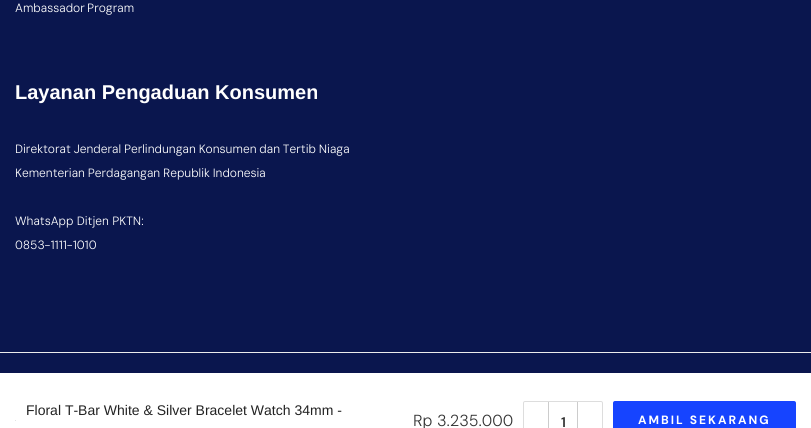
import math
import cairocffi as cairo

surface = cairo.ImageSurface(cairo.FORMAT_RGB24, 811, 428)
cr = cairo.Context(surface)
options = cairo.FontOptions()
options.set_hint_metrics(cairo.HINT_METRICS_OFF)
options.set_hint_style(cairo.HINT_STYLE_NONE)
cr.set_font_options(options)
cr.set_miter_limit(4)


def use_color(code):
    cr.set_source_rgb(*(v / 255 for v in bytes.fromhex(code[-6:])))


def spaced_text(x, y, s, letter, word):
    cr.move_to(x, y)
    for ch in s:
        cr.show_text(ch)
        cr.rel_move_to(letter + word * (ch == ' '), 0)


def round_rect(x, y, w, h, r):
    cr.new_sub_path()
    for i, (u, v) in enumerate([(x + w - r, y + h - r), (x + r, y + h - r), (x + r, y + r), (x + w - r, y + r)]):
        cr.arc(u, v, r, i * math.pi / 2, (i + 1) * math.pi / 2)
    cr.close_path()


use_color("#0a164e")
cr.paint()
use_color("#ececec")
cr.rectangle(0, 352, 811, 1)
cr.fill()
cr.select_font_face("DM Sans Light")
cr.set_font_size(12)
use_color("#ffffff")
spaced_text(15, 12, "Ambassador Program", 0, -1)
cr.select_font_face("Liberation Sans", cairo.FONT_SLANT_NORMAL, cairo.FONT_WEIGHT_BOLD)
cr.set_font_size(20)
cr.move_to(15, 99)
cr.show_text("Layanan Pengaduan Konsumen")
cr.select_font_face("DM Sans Light")
cr.set_font_size(12)
spaced_text(15, 153, "Direktorat Jenderal Perlindungan Konsumen dan Tertib Niaga", 0, -0.5)
spaced_text(15, 177, "Kementerian Perdagangan Republik Indonesia", 0, -0.5)
cr.move_to(15, 225)
cr.show_text("WhatsApp Ditjen PKTN:")
cr.move_to(15, 249)
cr.show_text("0853-1111-1010")
cr.rectangle(0, 373, 811, 55)
cr.fill()
cr.select_font_face("Liberation Sans")
cr.set_font_size(14)
use_color("#222222")
cr.move_to(26, 415)
cr.show_text("Floral T-Bar White & Silver Bracelet Watch 34mm -")
use_color("#e1e3e4")
cr.rectangle(15, 420, 1, 1)
cr.fill()
cr.select_font_face("DM Sans Light")
cr.set_font_size(16)
use_color("#333333")
cr.move_to(413, 426)
cr.show_text("Rp 3.235.000")
round_rect(523.5, 401.5, 79, 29, 1.5)
use_color("#dddddd")
cr.set_line_width(1)
cr.stroke()
use_color("#cccccc")
cr.rectangle(548, 402, 1, 26)
cr.fill()
cr.rectangle(577, 402, 1, 26)
cr.fill()
cr.select_font_face("DM Sans SemiBold")
cr.set_font_size(14)
use_color("#333333")
cr.move_to(561, 427)
cr.show_text("1")
use_color("#1644ff")
round_rect(613, 401, 183, 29, 2)
cr.fill()
cr.select_font_face("DM Sans", cairo.FONT_SLANT_NORMAL, cairo.FONT_WEIGHT_BOLD)
cr.set_font_size(12)
use_color("#ffffff")
spaced_text(638, 424, "AMBIL SEKARANG", 2, 0)
surface.write_to_png("result.png")
